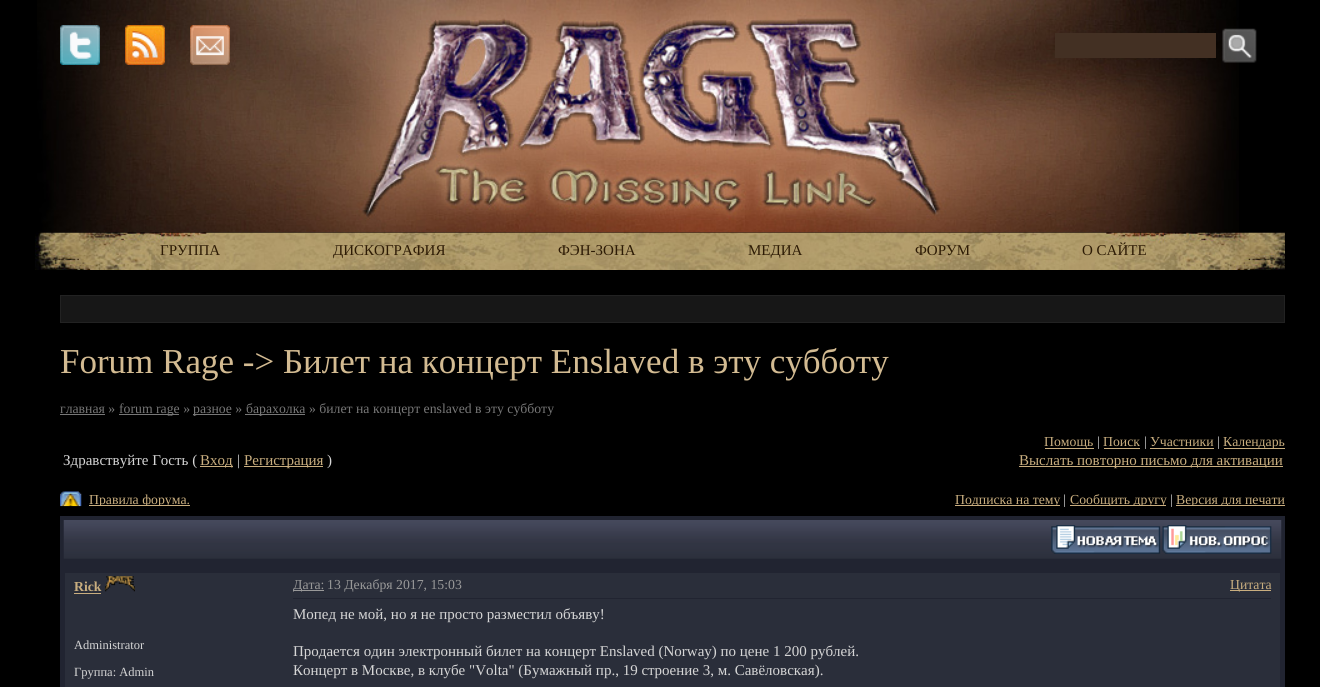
import math
import cairocffi as cairo

surface = cairo.ImageSurface(cairo.FORMAT_RGB24, 1320, 687)
cr = cairo.Context(surface)
options = cairo.FontOptions()
options.set_hint_metrics(cairo.HINT_METRICS_OFF)
options.set_hint_style(cairo.HINT_STYLE_NONE)
cr.set_font_options(options)
cr.set_miter_limit(4)


def use_color(code):
    cr.set_source_rgb(*(v / 255 for v in bytes.fromhex(code[-6:])))


def picture(path, x, y, w, h):
    cr.save()
    cr.set_source_surface(cairo.ImageSurface.create_from_png(path), x, y)
    cr.rectangle(x, y, w, h)
    cr.fill()
    cr.restore()


use_color("#000000")
cr.paint()
picture("img1.png", 37, 0, 1202, 233)
picture("img2.png", 60, 25, 40, 40)
picture("img3.png", 125, 25, 40, 40)
picture("img4.png", 190, 25, 40, 40)
use_color("#433023")
cr.rectangle(1055, 33, 161, 25)
cr.fill()
picture("img5.png", 1222, 28, 35, 35)
picture("img6.png", 35, 232, 1250, 38)
cr.select_font_face("Liberation Serif")
cr.set_font_size(15)
use_color("#2d1b05")
cr.move_to(160, 255)
cr.show_text("ГРУППА")
cr.move_to(333, 255)
cr.show_text("ДИСКОГРАФИЯ")
cr.move_to(558, 255)
cr.show_text("ФЭН-ЗОНА")
cr.move_to(748, 255)
cr.show_text("МЕДИА")
cr.move_to(915, 255)
cr.show_text("ФОРУМ")
cr.move_to(1082, 255)
cr.show_text("О САЙТЕ")
use_color("#171717")
cr.rectangle(60.5, 295.5, 1224, 27)
cr.fill_preserve()
use_color("#222222")
cr.set_line_width(1)
cr.stroke()
cr.set_font_size(35)
use_color("#d3bb92")
cr.move_to(60, 373)
cr.show_text("Forum Rage -> Билет на концерт Enslaved в эту субботу")
cr.set_font_size(13.75)
use_color("#777777")
cr.move_to(60, 413)
cr.show_text("главная »")
cr.rectangle(60, 414, 45, 1)
cr.fill()
cr.rectangle(119, 414, 60, 1)
cr.fill()
cr.move_to(119, 413)
cr.show_text("forum rage »")
cr.rectangle(193, 414, 38, 1)
cr.fill()
cr.move_to(193, 413)
cr.show_text("разное »")
cr.rectangle(245, 414, 60, 1)
cr.fill()
cr.move_to(246, 413)
cr.show_text("барахолка » билет на концерт enslaved в эту субботу")
use_color("#c9ae7f")
cr.rectangle(1045, 448, 49, 1)
cr.fill()
cr.move_to(1044, 446)
cr.show_text("Помощь")
use_color("#d6d6d6")
cr.move_to(1097, 446)
cr.show_text("|")
use_color("#c9ae7f")
cr.move_to(1103, 446)
cr.show_text("Поиск")
cr.rectangle(1104, 448, 36, 1)
cr.fill()
use_color("#d6d6d6")
cr.move_to(1144, 446)
cr.show_text("|")
use_color("#c9ae7f")
cr.move_to(1150, 446)
cr.show_text("Участники")
cr.rectangle(1150, 448, 64, 1)
cr.fill()
use_color("#d6d6d6")
cr.move_to(1217, 446)
cr.show_text("|")
use_color("#c9ae7f")
cr.rectangle(1224, 448, 61, 1)
cr.fill()
cr.move_to(1223, 446)
cr.show_text("Календарь")
cr.set_font_size(15)
use_color("#d6d6d6")
cr.move_to(63, 465)
cr.show_text("Здравствуйте Гость (")
use_color("#c9ae7f")
cr.rectangle(200, 466, 33, 1)
cr.fill()
cr.move_to(200, 465)
cr.show_text("Вход")
use_color("#d6d6d6")
cr.move_to(237, 465)
cr.show_text("|")
use_color("#c9ae7f")
cr.rectangle(244, 466, 79, 1)
cr.fill()
cr.move_to(244, 465)
cr.show_text("Регистрация")
use_color("#d6d6d6")
cr.move_to(327, 465)
cr.show_text(")")
use_color("#c9ae7f")
cr.rectangle(1019, 466, 264, 1)
cr.fill()
cr.move_to(1019, 465)
cr.show_text("Выслать повторно письмо для активации")
picture("img7.png", 60, 491, 22, 16)
cr.rectangle(89, 505, 101, 1)
cr.fill()
cr.save()
cr.rectangle(60, 491, 1225, 15)
cr.clip()
cr.set_font_size(13.75)
cr.move_to(89, 504)
cr.show_text("Правила форума.")
cr.restore()
cr.rectangle(955, 505, 105, 1)
cr.fill()
cr.save()
cr.rectangle(60, 491, 1225, 15)
cr.clip()
cr.set_font_size(13.75)
cr.move_to(955, 504)
cr.show_text("Подписка на тему")
cr.restore()
cr.set_font_size(13.75)
use_color("#d6d6d6")
cr.move_to(1063, 504)
cr.show_text("|")
use_color("#c9ae7f")
cr.rectangle(1070, 505, 96, 1)
cr.fill()
cr.save()
cr.rectangle(60, 491, 1225, 15)
cr.clip()
cr.move_to(1070, 504)
cr.show_text("Сообщить другу")
cr.restore()
use_color("#d6d6d6")
cr.move_to(1170, 504)
cr.show_text("|")
use_color("#c9ae7f")
cr.rectangle(1176, 505, 109, 1)
cr.fill()
cr.save()
cr.rectangle(60, 491, 1225, 15)
cr.clip()
cr.move_to(1176, 504)
cr.show_text("Версия для печати")
cr.restore()
use_color("#212431")
cr.rectangle(60, 516, 1225, 171)
cr.fill()
picture("img8.png", 63, 520, 1219, 39)
picture("img9.png", 1051, 525, 110, 29)
picture("img10.png", 1162, 525, 110, 29)
use_color("#2a2e3a")
cr.rectangle(65, 573, 1215, 114)
cr.fill()
cr.select_font_face("Liberation Serif", cairo.FONT_SLANT_NORMAL, cairo.FONT_WEIGHT_BOLD)
use_color("#c9ae7f")
cr.move_to(74, 591)
cr.show_text("Rick")
cr.rectangle(74, 593, 27, 1)
cr.fill()
picture("img11.png", 105, 576, 30, 16)
cr.select_font_face("Liberation Serif")
cr.set_font_size(12.5)
use_color("#d6d6d6")
cr.move_to(74, 649)
cr.show_text("Administrator")
cr.move_to(74, 676)
cr.show_text("Группа: Admin")
use_color("#212431")
cr.rectangle(293, 598, 978, 1)
cr.fill()
use_color("#999999")
cr.rectangle(293, 590, 31, 1)
cr.fill()
cr.save()
cr.rectangle(293, 576, 978, 22)
cr.clip()
cr.set_font_size(13.75)
cr.move_to(293, 589)
cr.show_text("Дата:")
cr.restore()
cr.set_font_size(13.75)
cr.move_to(327, 589)
cr.show_text("13 Декабря 2017, 15:03")
use_color("#c9ae7f")
cr.rectangle(1230, 590, 41, 1)
cr.fill()
cr.move_to(1230, 589)
cr.show_text("Цитата")
cr.set_font_size(15)
use_color("#d6d6d6")
cr.move_to(293, 619)
cr.show_text("Мопед не мой, но я не просто разместил объяву!")
cr.move_to(293, 656)
cr.show_text("Продается один электронный билет на концерт Enslaved (Norway) по цене 1 200 рублей.")
cr.move_to(293, 675)
cr.show_text("Концерт в Москве, в клубе \"Volta\" (Бумажный пр., 19 строение 3, м. Савёловская).")
surface.write_to_png("result.png")
